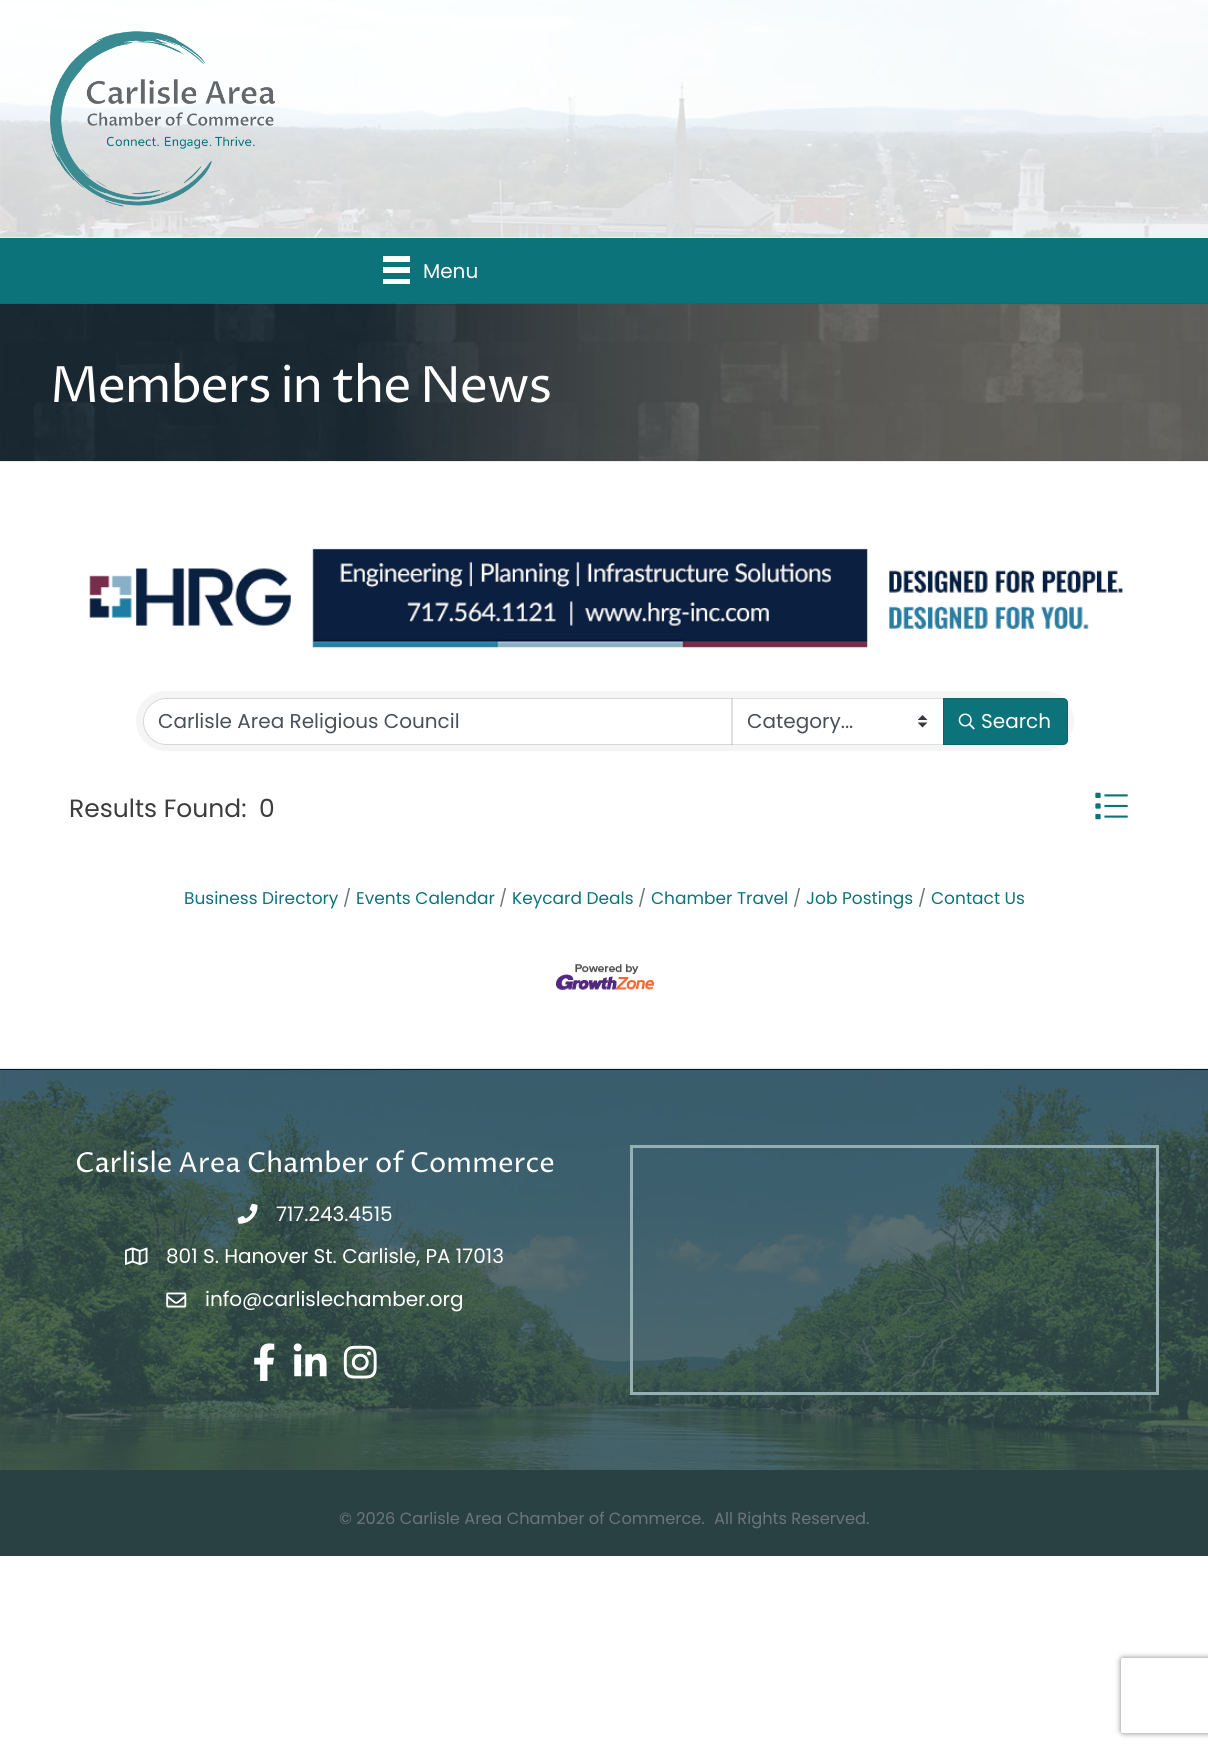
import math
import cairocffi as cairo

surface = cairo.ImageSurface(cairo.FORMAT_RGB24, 1208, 1749)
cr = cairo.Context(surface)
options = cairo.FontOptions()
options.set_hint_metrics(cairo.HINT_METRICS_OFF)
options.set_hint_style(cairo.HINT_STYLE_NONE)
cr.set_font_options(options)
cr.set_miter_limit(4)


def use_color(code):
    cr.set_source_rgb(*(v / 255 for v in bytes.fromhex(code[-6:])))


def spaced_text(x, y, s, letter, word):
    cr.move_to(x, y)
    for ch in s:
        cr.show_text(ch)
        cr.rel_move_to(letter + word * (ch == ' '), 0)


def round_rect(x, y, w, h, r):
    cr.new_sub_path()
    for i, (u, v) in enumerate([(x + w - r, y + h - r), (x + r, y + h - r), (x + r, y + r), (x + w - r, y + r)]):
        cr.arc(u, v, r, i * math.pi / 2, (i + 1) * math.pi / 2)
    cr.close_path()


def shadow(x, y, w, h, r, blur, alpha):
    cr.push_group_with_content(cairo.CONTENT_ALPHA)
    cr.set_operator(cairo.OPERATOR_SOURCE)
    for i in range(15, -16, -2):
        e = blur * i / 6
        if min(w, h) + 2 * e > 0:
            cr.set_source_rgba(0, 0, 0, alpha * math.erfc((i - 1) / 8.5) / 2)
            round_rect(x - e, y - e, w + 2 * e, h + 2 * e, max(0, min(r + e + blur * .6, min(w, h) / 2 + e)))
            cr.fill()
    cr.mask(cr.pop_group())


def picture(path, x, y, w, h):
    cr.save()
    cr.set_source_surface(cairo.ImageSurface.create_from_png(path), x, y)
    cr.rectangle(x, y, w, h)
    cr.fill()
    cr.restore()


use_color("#ffffff")
cr.paint()
picture("img1.png", 0, 0, 1208, 238)
picture("img2.png", 50, 31, 225, 176)
use_color("#0c737a")
cr.rectangle(0, 238, 1208, 66)
cr.fill()
use_color("#ffffff")
cr.rectangle(383, 256, 27, 6)
cr.fill()
cr.rectangle(383, 267, 27, 6)
cr.fill()
cr.rectangle(383, 279, 27, 5)
cr.fill()
cr.select_font_face("Poppins")
cr.set_font_size(20)
cr.move_to(423, 278)
cr.show_text("Menu")
use_color("#556169")
cr.rectangle(0, 304, 1208, 157)
cr.fill()
picture("img3.png", 0, 303, 1208, 159)
gradient = cairo.LinearGradient(0, 383, 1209, 382)
gradient.add_color_stop_rgba(0.3, 0.02, 0.086, 0.133, 0.64)
gradient.add_color_stop_rgba(1, 0.871, 0.725, 0.573, 0.2)
cr.set_source(gradient)
cr.rectangle(0, 304, 1208, 157)
cr.fill()
cr.select_font_face("Proza Libre")
cr.set_font_size(50)
use_color("#ffffff")
spaced_text(50, 402, "Members in the News", -1.25, 0)
picture("img4.png", 89, 548, 1034, 100)
use_color("#f5f5f5")
round_rect(136, 691, 938, 60, 30)
cr.fill()
use_color("#ffffff")
cr.new_path()
cr.move_to(166.5, 699)
cr.line_to(731, 699)
cr.line_to(731, 744)
cr.line_to(166.5, 744)
cr.curve_to(154, 744, 144, 734, 144, 721.5)
cr.curve_to(144, 709, 154, 699, 166.5, 699)
cr.close_path()
cr.fill()
cr.rectangle(732, 699, 211, 45)
cr.fill()
picture("img5.png", 918, 715, 10, 13)
cr.rectangle(731.5, 698.5, 212, 46)
use_color("#dfdfdf")
cr.set_line_width(1)
cr.stroke()
cr.new_path()
cr.move_to(166.5, 698.5)
cr.line_to(732.5, 698.5)
cr.line_to(732.5, 744.5)
cr.line_to(166.5, 744.5)
cr.curve_to(154, 744.5, 143.5, 734, 143.5, 721.5)
cr.curve_to(143.5, 709, 154, 698.5, 166.5, 698.5)
cr.close_path()
cr.set_source_rgba(0, 0, 0, 0.12)
cr.stroke()
cr.select_font_face("Poppins")
cr.set_font_size(20)
use_color("#495057")
cr.move_to(158, 728)
cr.show_text("Carlisle Area Religious Council")
cr.move_to(747, 728)
cr.show_text("Category...")
use_color("#0c737a")
cr.new_path()
cr.move_to(943, 698)
cr.line_to(1063, 698)
cr.curve_to(1066, 698, 1068, 700, 1068, 703)
cr.line_to(1068, 740)
cr.curve_to(1068, 743, 1066, 745, 1063, 745)
cr.line_to(943, 745)
cr.close_path()
cr.fill()
cr.new_path()
cr.move_to(943.5, 698.5)
cr.line_to(1063, 698.5)
cr.curve_to(1065.5, 698.5, 1067.5, 700.5, 1067.5, 703)
cr.line_to(1067.5, 740)
cr.curve_to(1067.5, 742.5, 1065.5, 744.5, 1063, 744.5)
cr.line_to(943.5, 744.5)
cr.close_path()
cr.set_source_rgba(0, 0, 0, 0.12)
cr.stroke()
picture("img6.png", 958, 713, 17, 17)
use_color("#ffffff")
cr.move_to(981, 728)
cr.show_text("Search")
cr.set_font_size(25)
use_color("#3d3d3d")
cr.move_to(69, 817)
cr.show_text("Results Found:")
cr.move_to(259, 817)
cr.show_text("0")
picture("img7.png", 1095, 792, 33, 28)
cr.set_font_size(17)
use_color("#0c737a")
cr.move_to(184, 904)
cr.show_text("Business Directory")
use_color("#6c757d")
cr.move_to(343, 904)
cr.show_text("/")
use_color("#0c737a")
cr.move_to(356, 904)
cr.show_text("Events Calendar")
use_color("#6c757d")
cr.move_to(499, 904)
cr.show_text("/")
use_color("#0c737a")
cr.move_to(512, 904)
cr.show_text("Keycard Deals")
use_color("#6c757d")
cr.move_to(638, 904)
cr.show_text("/")
use_color("#0c737a")
cr.move_to(651, 904)
cr.show_text("Chamber Travel")
use_color("#6c757d")
cr.move_to(793, 904)
cr.show_text("/")
use_color("#0c737a")
cr.move_to(806, 904)
cr.show_text("Job Postings")
use_color("#6c757d")
cr.move_to(918, 904)
cr.show_text("/")
use_color("#0c737a")
cr.move_to(931, 904)
cr.show_text("Contact Us")
picture("img8.png", 556, 964, 98, 26)
picture("img9.png", 0, 1068, 1208, 402)
use_color("#051622")
cr.rectangle(0, 1069, 1208, 1)
cr.fill()
cr.select_font_face("Proza Libre")
cr.set_font_size(27.5)
use_color("#ffffff")
cr.move_to(75, 1172)
cr.show_text("Carlisle Area Chamber of Commerce")
picture("img10.png", 237, 1203, 21, 21)
cr.select_font_face("Poppins")
cr.set_font_size(20)
cr.move_to(276, 1221)
cr.show_text("717.243.4515")
picture("img11.png", 125, 1247, 23, 18)
cr.move_to(166, 1263)
cr.show_text("801 S. Hanover St. Carlisle, PA 17013")
picture("img12.png", 166, 1292, 21, 16)
cr.move_to(205, 1306)
cr.show_text("info@carlislechamber.org")
picture("img13.png", 254, 1343, 21, 38)
picture("img14.png", 293, 1343, 34, 34)
picture("img15.png", 343, 1345, 34, 34)
cr.rectangle(631.5, 1146.5, 526, 247)
use_color("#94b0b3")
cr.set_line_width(3)
cr.stroke()
use_color("#294142")
cr.rectangle(0, 1470, 1208, 86)
cr.fill()
cr.set_font_size(16.25)
use_color("#6c757d")
cr.move_to(339, 1524)
cr.show_text("© 2026 Carlisle Area Chamber of Commerce.")
cr.move_to(714, 1524)
cr.show_text("All Rights Reserved.")
cr.save()
cr.set_fill_rule(cairo.FILL_RULE_EVEN_ODD)
cr.new_path()
cr.move_to(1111, 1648)
cr.line_to(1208, 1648)
cr.line_to(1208, 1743)
cr.line_to(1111, 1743)
cr.close_path()
cr.move_to(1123.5, 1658)
cr.line_to(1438.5, 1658)
cr.curve_to(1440, 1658, 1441, 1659, 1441, 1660.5)
cr.line_to(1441, 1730.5)
cr.curve_to(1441, 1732, 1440, 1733, 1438.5, 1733)
cr.line_to(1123.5, 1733)
cr.curve_to(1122, 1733, 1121, 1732, 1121, 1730.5)
cr.line_to(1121, 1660.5)
cr.curve_to(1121, 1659, 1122, 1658, 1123.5, 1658)
cr.close_path()
cr.clip()
use_color("#808080")
shadow(1121, 1658, 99, 75, 2.5, 3, 1)
cr.restore()
surface.write_to_png("result.png")
